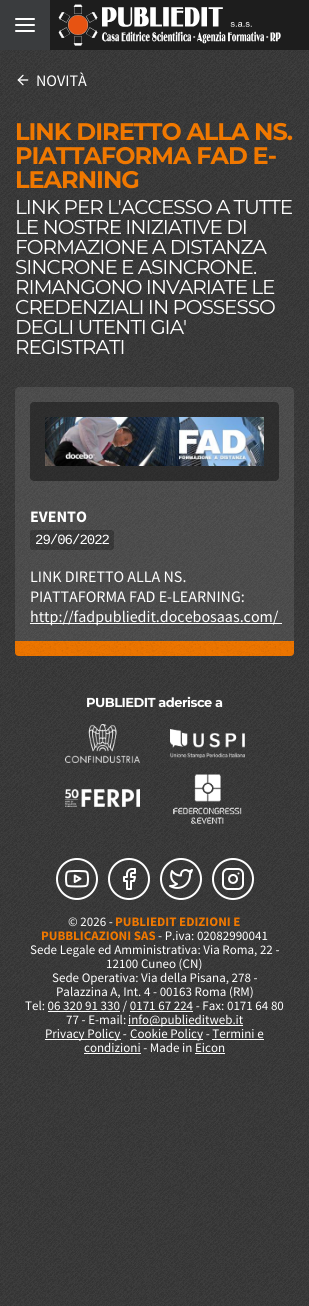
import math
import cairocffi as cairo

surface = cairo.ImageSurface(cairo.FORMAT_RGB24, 309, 1306)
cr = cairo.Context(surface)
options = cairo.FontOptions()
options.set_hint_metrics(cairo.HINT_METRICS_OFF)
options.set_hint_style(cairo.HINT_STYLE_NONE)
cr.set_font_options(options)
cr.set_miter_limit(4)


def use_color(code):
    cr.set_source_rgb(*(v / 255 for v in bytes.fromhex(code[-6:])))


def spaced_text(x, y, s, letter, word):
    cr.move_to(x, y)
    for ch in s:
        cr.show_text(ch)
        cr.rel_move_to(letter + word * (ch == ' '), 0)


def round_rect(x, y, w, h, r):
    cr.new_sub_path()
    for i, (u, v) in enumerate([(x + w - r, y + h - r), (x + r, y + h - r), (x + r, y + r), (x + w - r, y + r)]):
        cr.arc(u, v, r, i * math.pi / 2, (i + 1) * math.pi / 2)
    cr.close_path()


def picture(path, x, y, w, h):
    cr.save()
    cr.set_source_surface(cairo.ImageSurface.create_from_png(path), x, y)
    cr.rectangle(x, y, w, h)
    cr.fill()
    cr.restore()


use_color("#ffffff")
cr.paint()
picture("img1.png", 0, 50, 309, 1256)
use_color("#3a3c3e")
cr.rectangle(0, 0, 50, 50)
cr.fill()
cr.new_path()
cr.move_to(16, 25)
cr.line_to(34, 25)
cr.move_to(16, 19)
cr.line_to(34, 19)
cr.move_to(16, 31)
cr.line_to(34, 31)
use_color("#ffffff")
cr.set_line_cap(cairo.LINE_CAP_ROUND)
cr.set_line_join(cairo.LINE_JOIN_ROUND)
cr.stroke()
use_color("#1d1d1d")
cr.rectangle(50, 0, 259, 50)
cr.fill()
picture("img2.png", 58, 4, 223, 42)
picture("img3.png", 17, 74, 12, 12)
cr.select_font_face("Source Sans Pro")
cr.set_font_size(16)
use_color("#ffffff")
cr.move_to(36, 86)
cr.show_text("NOVITÀ")
cr.select_font_face("Montserrat Thin")
cr.set_font_size(24)
use_color("#f07800")
spaced_text(15, 140, "LINK DIRETTO ALLA NS.", -1, 0)
spaced_text(15, 164, "PIATTAFORMA FAD E-", -1, 0)
spaced_text(15, 188, "LEARNING", -1, 0)
cr.select_font_face("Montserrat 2 Thin")
cr.set_font_size(20)
use_color("#ffffff")
spaced_text(15, 214, "LINK PER L'ACCESSO A TUTTE", -1, 0)
spaced_text(15, 234, "LE NOSTRE INIZIATIVE DI", -1, 0)
spaced_text(15, 254, "FORMAZIONE A DISTANZA", -1, 0)
spaced_text(15, 274, "SINCRONE E ASINCRONE.", -1, 0)
spaced_text(15, 294, "RIMANGONO INVARIATE LE", -1, 0)
spaced_text(15, 314, "CREDENZIALI IN POSSESSO", -1, 0)
spaced_text(15, 334, "DEGLI UTENTI GIA'", -1, 0)
spaced_text(15, 354, "REGISTRATI", -1, 0)
cr.set_source_rgba(1, 1, 1, 0.1)
cr.new_path()
cr.move_to(19, 387)
cr.line_to(290, 387)
cr.curve_to(292, 387, 294, 389, 294, 391)
cr.line_to(294, 641)
cr.line_to(15, 641)
cr.line_to(15, 391)
cr.curve_to(15, 389, 17, 387, 19, 387)
cr.close_path()
cr.fill()
cr.set_source_rgba(0, 0, 0, 0.4)
round_rect(30, 402, 249, 79, 4)
cr.fill()
picture("img4.png", 45, 417, 219, 49)
cr.select_font_face("Source Sans Pro", cairo.FONT_SLANT_NORMAL, cairo.FONT_WEIGHT_BOLD)
cr.set_font_size(16)
use_color("#ffffff")
cr.move_to(30, 522)
cr.show_text("EVENTO")
picture("img5.png", 30, 530, 84, 20)
cr.select_font_face("Liberation Mono")
cr.set_font_size(14)
spaced_text(35, 544, "29/06/2022", -1, 0)
cr.select_font_face("Source Sans Pro")
cr.set_font_size(16)
cr.move_to(30, 582)
cr.show_text("LINK DIRETTO ALLA NS.")
cr.move_to(30, 602)
cr.show_text("PIATTAFORMA FAD E-LEARNING:")
cr.rectangle(30, 623, 252, 1)
cr.fill()
cr.move_to(30, 622)
cr.show_text("http://fadpubliedit.docebosaas.com/")
picture("img6.png", 15, 641, 279, 15)
picture("img7.png", 0, 671, 309, 409)
cr.select_font_face("Montserrat Thin")
cr.set_font_size(13)
spaced_text(86, 707, "PUBLIEDIT aderisce a", -0.5, 0)
picture("img8.png", 65, 724, 75, 39)
picture("img9.png", 170, 729, 75, 29)
picture("img10.png", 65, 789, 75, 18)
picture("img11.png", 173, 774, 69, 50)
cr.arc(77, 879, 20, 0, 2 * math.pi)
cr.set_line_cap(cairo.LINE_CAP_BUTT)
cr.set_line_join(cairo.LINE_JOIN_MITER)
cr.stroke()
picture("img12.png", 65, 870, 24, 18)
cr.arc(129, 879, 20, 0, 2 * math.pi)
cr.stroke()
picture("img13.png", 123, 868, 13, 22)
cr.arc(181, 879, 20, 0, 2 * math.pi)
cr.stroke()
picture("img14.png", 169, 869, 24, 20)
cr.arc(233, 879, 20, 0, 2 * math.pi)
cr.stroke()
picture("img15.png", 222, 868, 22, 22)
cr.select_font_face("Source Sans Pro")
cr.move_to(68, 926)
cr.show_text("© 2026 -")
cr.select_font_face("Source Sans Pro", cairo.FONT_SLANT_NORMAL, cairo.FONT_WEIGHT_BOLD)
use_color("#f07800")
cr.move_to(115, 926)
cr.show_text("PUBLIEDIT EDIZIONI E")
cr.move_to(41, 940)
cr.show_text("PUBBLICAZIONI SAS")
cr.select_font_face("Source Sans Pro")
use_color("#ffffff")
cr.move_to(158, 940)
cr.show_text("- P.iva: 02082990041")
cr.move_to(30, 954)
cr.show_text("Sede Legale ed Amministrativa: Via Roma, 22 -")
cr.move_to(106, 968)
cr.show_text("12100 Cuneo (CN)")
cr.move_to(52, 982)
cr.show_text("Sede Operativa: Via della Pisana, 278 -")
cr.move_to(56, 996)
cr.show_text("Palazzina A, Int. 4 - 00163 Roma (RM)")
cr.move_to(25, 1010)
cr.show_text("Tel: 06 320 91 330 / 0171 67 224 - Fax: 0171 64 80")
cr.rectangle(48, 1011, 72, 1)
cr.fill()
cr.rectangle(130, 1011, 63, 1)
cr.fill()
cr.move_to(66, 1024)
cr.show_text("77 - E-mail:")
cr.rectangle(128, 1025, 115, 1)
cr.fill()
cr.move_to(128, 1024)
cr.show_text("info@publieditweb.it")
cr.rectangle(45, 1039, 76, 1)
cr.fill()
cr.move_to(45, 1038)
cr.show_text("Privacy Policy -")
cr.rectangle(130, 1039, 73, 1)
cr.fill()
cr.move_to(130, 1038)
cr.show_text("Cookie Policy - Termini e")
cr.move_to(84, 1052)
cr.show_text("condizioni - Made in Eicon")
cr.rectangle(212, 1039, 52, 1)
cr.fill()
cr.rectangle(84, 1053, 57, 1)
cr.fill()
cr.rectangle(195, 1053, 30, 1)
cr.fill()
surface.write_to_png("result.png")
